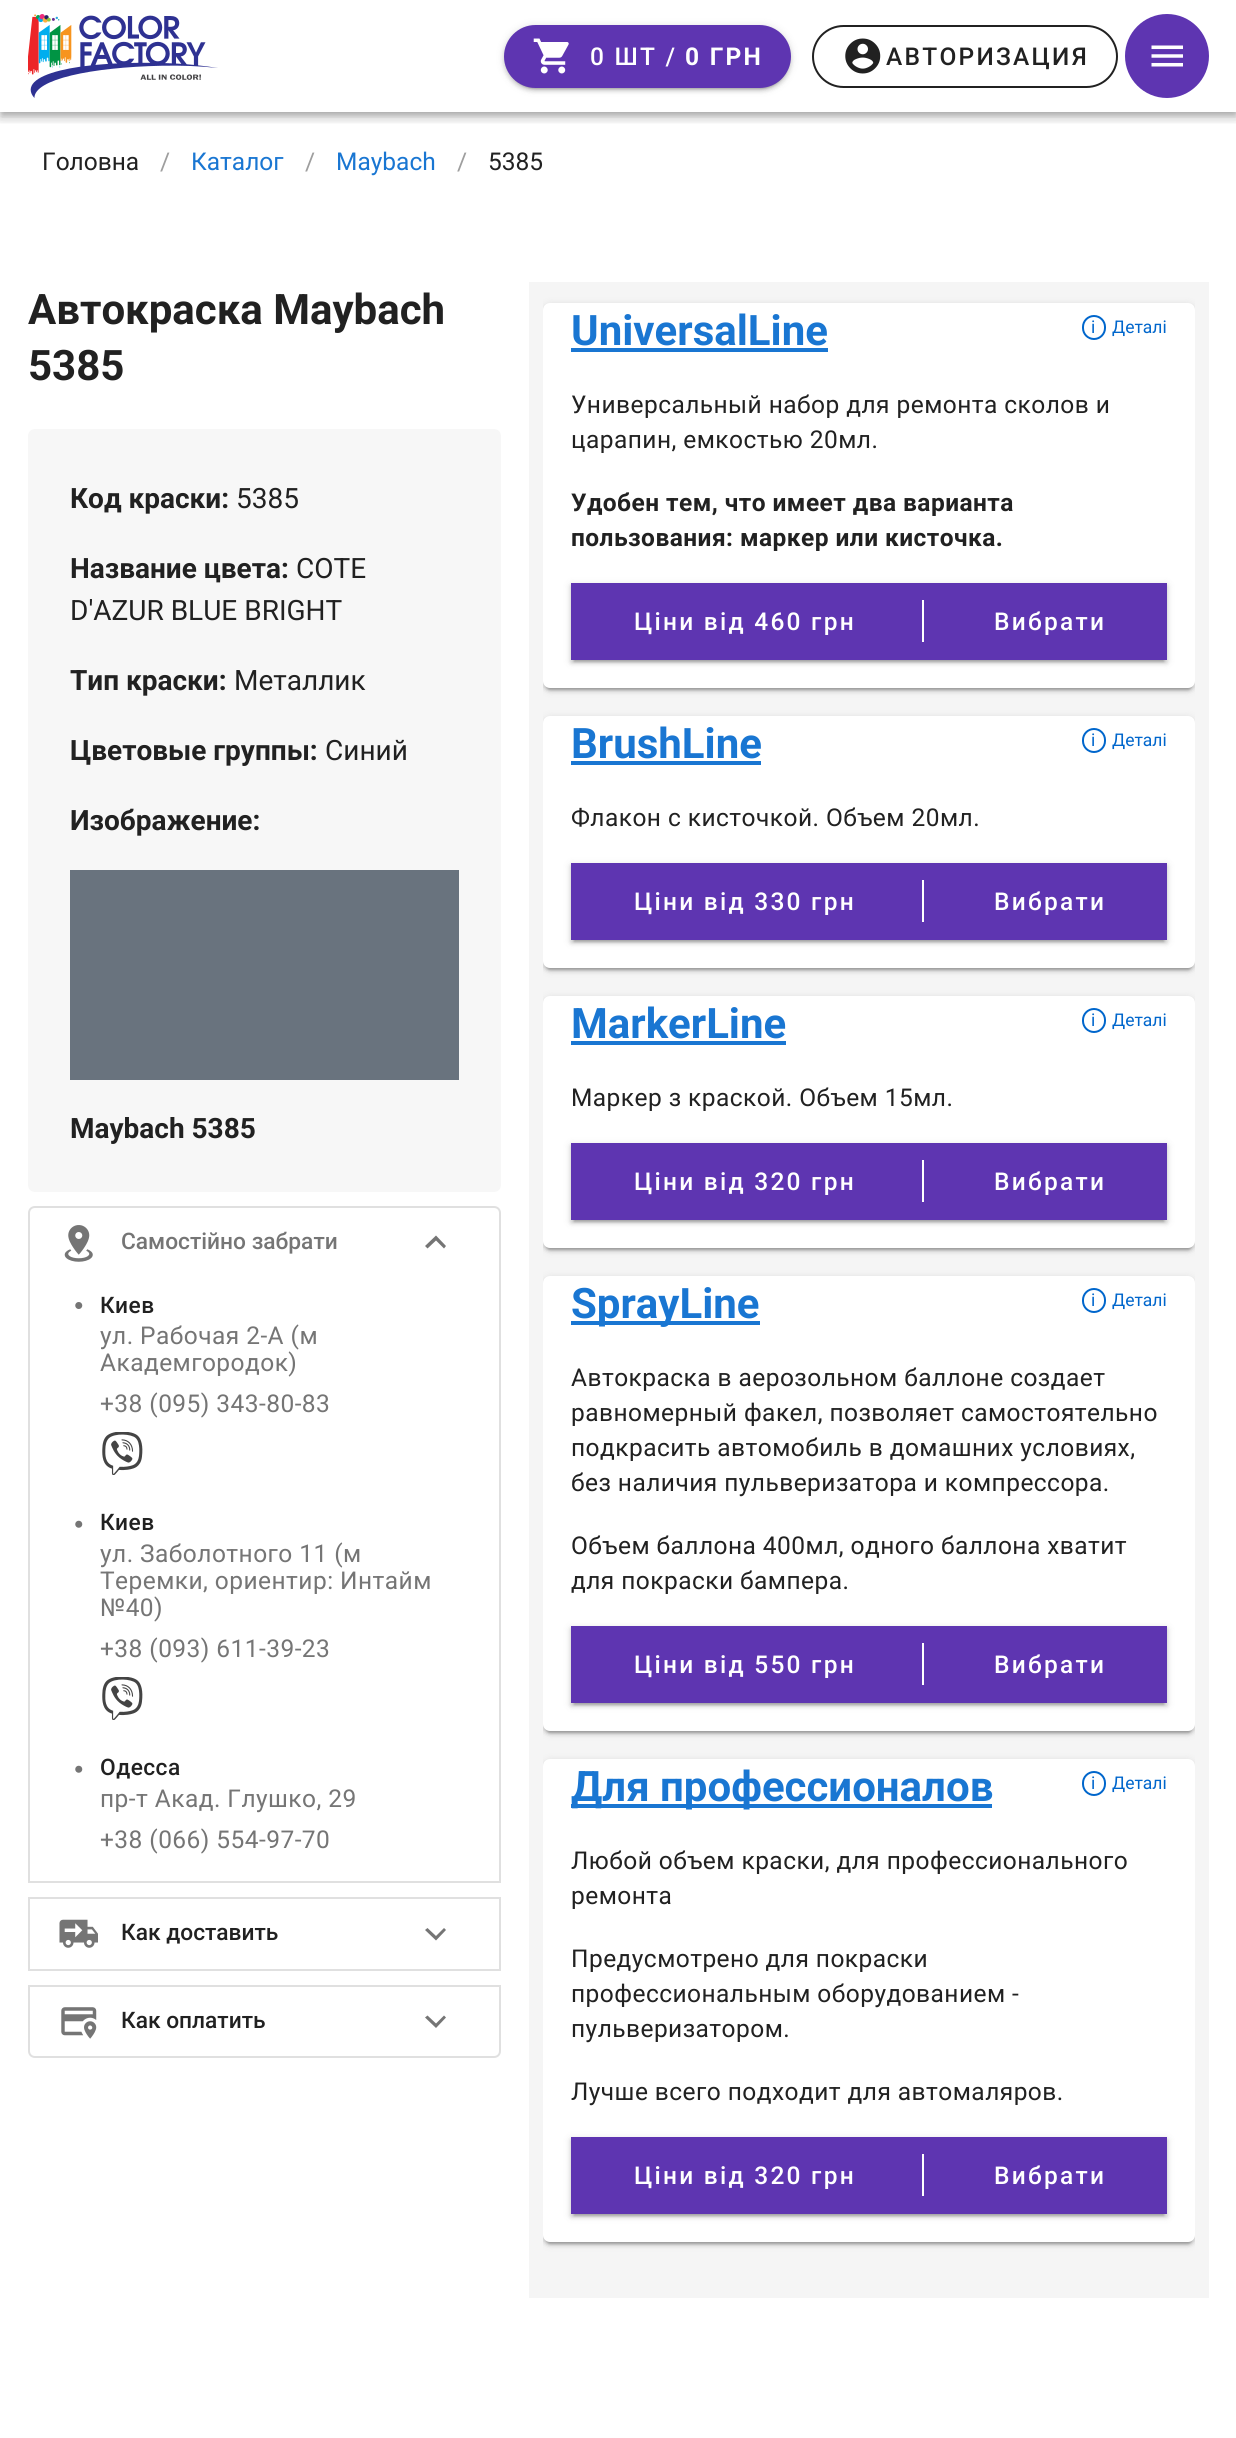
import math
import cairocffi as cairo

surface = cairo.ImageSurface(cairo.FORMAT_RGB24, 1236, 2438)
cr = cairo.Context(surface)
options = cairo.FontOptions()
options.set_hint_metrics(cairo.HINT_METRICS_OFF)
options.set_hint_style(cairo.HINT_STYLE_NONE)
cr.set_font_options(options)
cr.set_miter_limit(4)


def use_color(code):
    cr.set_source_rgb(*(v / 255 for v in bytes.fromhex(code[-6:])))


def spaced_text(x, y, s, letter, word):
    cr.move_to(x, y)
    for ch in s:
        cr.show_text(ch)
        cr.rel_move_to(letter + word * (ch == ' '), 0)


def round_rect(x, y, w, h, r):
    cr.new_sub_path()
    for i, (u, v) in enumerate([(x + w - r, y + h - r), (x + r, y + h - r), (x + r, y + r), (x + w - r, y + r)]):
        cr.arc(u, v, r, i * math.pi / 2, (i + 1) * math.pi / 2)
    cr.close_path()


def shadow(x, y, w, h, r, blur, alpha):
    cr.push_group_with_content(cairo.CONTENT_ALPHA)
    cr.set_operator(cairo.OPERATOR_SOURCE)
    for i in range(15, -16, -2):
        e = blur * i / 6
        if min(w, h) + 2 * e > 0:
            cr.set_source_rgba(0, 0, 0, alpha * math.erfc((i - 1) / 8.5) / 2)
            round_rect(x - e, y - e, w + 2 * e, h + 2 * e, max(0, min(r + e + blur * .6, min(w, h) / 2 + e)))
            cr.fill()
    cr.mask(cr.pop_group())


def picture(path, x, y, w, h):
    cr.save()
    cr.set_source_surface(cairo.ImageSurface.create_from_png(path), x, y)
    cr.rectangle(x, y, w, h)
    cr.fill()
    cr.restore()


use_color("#ffffff")
cr.paint()
cr.save()
cr.rectangle(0, 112, 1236, 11)
cr.clip()
use_color("#000000")
shadow(0, 2, 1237, 112, 0, 9, 0.12)
cr.restore()
cr.save()
cr.rectangle(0, 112, 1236, 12)
cr.clip()
use_color("#000000")
shadow(0, 7, 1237, 112, 0, 4.5, 0.14)
cr.restore()
cr.save()
cr.rectangle(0, 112, 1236, 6)
cr.clip()
use_color("#000000")
shadow(2, 5, 1234, 109, 0, 3.5, 0.2)
cr.restore()
picture("img1.png", 28, 14, 190, 84)
use_color("#000000")
shadow(504, 26, 287, 63, 31.5, 4.5, 0.12)
shadow(504, 28, 287, 63, 31.5, 2, 0.14)
shadow(508, 33, 280, 56, 28, 1, 0.2)
use_color("#5e35b1")
round_rect(504, 25, 287, 63, 31.5)
cr.fill()
picture("img2.png", 533, 38, 36, 36)
cr.select_font_face("Roboto Medium")
cr.set_font_size(24.5)
use_color("#ffffff")
spaced_text(590, 65, "0 ШТ /", 2.25, 0)
cr.select_font_face("Roboto", cairo.FONT_SLANT_NORMAL, cairo.FONT_WEIGHT_BOLD)
spaced_text(685, 65, "0 ГРН", 2.25, 0)
round_rect(813, 26, 304, 61, 30.5)
use_color("#212121")
cr.stroke()
picture("img3.png", 845, 38, 36, 36)
cr.select_font_face("Roboto Medium")
spaced_text(886, 65, "АВТОРИЗАЦИЯ", 2.25, 0)
use_color("#5e35b1")
cr.new_path()
cr.arc(1167, 56, 42, 0, 2 * math.pi)
cr.fill()
picture("img4.png", 1151, 45, 32, 22)
cr.select_font_face("Roboto")
use_color("#212121")
cr.move_to(42, 170)
cr.show_text("Головна")
use_color("#9e9e9e")
cr.move_to(160, 170)
cr.show_text("/")
use_color("#1976d2")
cr.move_to(191, 170)
cr.show_text("Каталог")
use_color("#9e9e9e")
cr.move_to(305, 170)
cr.show_text("/")
use_color("#1976d2")
cr.move_to(336, 170)
cr.show_text("Maybach")
use_color("#9e9e9e")
cr.move_to(457, 170)
cr.show_text("/")
use_color("#212121")
cr.move_to(488, 170)
cr.show_text("5385")
cr.select_font_face("Roboto", cairo.FONT_SLANT_NORMAL, cairo.FONT_WEIGHT_BOLD)
cr.set_font_size(42)
cr.move_to(28, 324)
cr.show_text("Автокраска Maybach")
cr.move_to(28, 380)
cr.show_text("5385")
use_color("#f7f7f7")
round_rect(28, 429, 473, 763, 7)
cr.fill()
cr.set_font_size(28)
use_color("#212121")
cr.move_to(70, 508)
cr.show_text("Код краски:")
cr.select_font_face("Roboto")
cr.move_to(236, 508)
cr.show_text("5385")
cr.select_font_face("Roboto", cairo.FONT_SLANT_NORMAL, cairo.FONT_WEIGHT_BOLD)
cr.move_to(70, 578)
cr.show_text("Название цвета:")
cr.select_font_face("Roboto")
cr.move_to(296, 578)
cr.show_text("COTE")
cr.move_to(70, 620)
cr.show_text("D'AZUR BLUE BRIGHT")
cr.select_font_face("Roboto", cairo.FONT_SLANT_NORMAL, cairo.FONT_WEIGHT_BOLD)
cr.move_to(70, 690)
cr.show_text("Тип краски:")
cr.select_font_face("Roboto")
cr.move_to(234, 690)
cr.show_text("Металлик")
cr.select_font_face("Roboto", cairo.FONT_SLANT_NORMAL, cairo.FONT_WEIGHT_BOLD)
cr.move_to(70, 760)
cr.show_text("Цветовые группы:")
cr.select_font_face("Roboto")
cr.move_to(325, 760)
cr.show_text("Синий")
cr.select_font_face("Roboto", cairo.FONT_SLANT_NORMAL, cairo.FONT_WEIGHT_BOLD)
cr.move_to(70, 830)
cr.show_text("Изображение:")
use_color("#69737e")
cr.rectangle(70, 870, 389, 210)
cr.fill()
use_color("#212121")
cr.move_to(70, 1138)
cr.show_text("Maybach 5385")
cr.new_path()
cr.move_to(35, 1207)
cr.line_to(494, 1207)
cr.curve_to(497.5, 1207, 500, 1209.5, 500, 1213)
cr.line_to(500, 1882)
cr.line_to(29, 1882)
cr.line_to(29, 1213)
cr.curve_to(29, 1209.5, 31.5, 1207, 35, 1207)
cr.close_path()
use_color("#e0e0e0")
cr.stroke()
picture("img5.png", 64, 1225, 29, 37)
cr.select_font_face("Roboto Medium")
cr.set_font_size(22.75)
use_color("#757575")
cr.move_to(121, 1249)
cr.show_text("Самостійно забрати")
cr.new_path()
cr.move_to(444, 1248.5)
cr.line_to(436, 1240.5)
cr.line_to(427.5, 1248.5)
cr.line_to(425, 1246)
cr.line_to(436, 1235.5)
cr.line_to(446, 1246)
cr.close_path()
cr.fill()
picture("img6.png", 75, 1302, 8, 7)
use_color("#212121")
spaced_text(100, 1313, "Киев", 0.45, 0)
cr.select_font_face("Roboto")
cr.set_font_size(24.5)
use_color("#757575")
spaced_text(100, 1344, "ул. Рабочая 2-А (м", 0.45, 0)
spaced_text(100, 1371, "Академгородок)", 0.45, 0)
spaced_text(100, 1412, "+38 (095) 343-80-83", 0.45, 0)
picture("img7.png", 102, 1432, 41, 43)
picture("img8.png", 75, 1520, 8, 8)
cr.select_font_face("Roboto Medium")
cr.set_font_size(22.75)
use_color("#212121")
spaced_text(100, 1530, "Киев", 0.45, 0)
cr.select_font_face("Roboto")
cr.set_font_size(24.5)
use_color("#757575")
spaced_text(100, 1562, "ул. Заболотного 11 (м", 0.45, 0)
spaced_text(100, 1589, "Теремки, ориентир: Интайм", 0.45, 0)
spaced_text(100, 1616, "№40)", 0.45, 0)
spaced_text(100, 1657, "+38 (093) 611-39-23", 0.45, 0)
picture("img7.png", 102, 1677, 41, 43)
picture("img8.png", 75, 1765, 8, 8)
cr.select_font_face("Roboto Medium")
cr.set_font_size(22.75)
use_color("#212121")
spaced_text(100, 1775, "Одесса", 0.45, 0)
cr.select_font_face("Roboto")
cr.set_font_size(24.5)
use_color("#757575")
spaced_text(100, 1807, "пр-т Акад. Глушко, 29", 0.45, 0)
spaced_text(100, 1848, "+38 (066) 554-97-70", 0.45, 0)
cr.rectangle(29, 1898, 471, 72)
use_color("#e0e0e0")
cr.stroke()
picture("img9.png", 59, 1919, 39, 29)
cr.select_font_face("Roboto Medium")
cr.set_font_size(22.75)
use_color("#212121")
cr.move_to(121, 1940)
cr.show_text("Как доставить")
use_color("#757575")
cr.new_path()
cr.move_to(427.5, 1928)
cr.line_to(436, 1936)
cr.line_to(444, 1928)
cr.line_to(446, 1930)
cr.line_to(436, 1940.5)
cr.line_to(425, 1930)
cr.close_path()
cr.fill()
cr.new_path()
cr.move_to(29, 1986)
cr.line_to(500, 1986)
cr.line_to(500, 2051)
cr.curve_to(500, 2054.5, 497.5, 2057, 494, 2057)
cr.line_to(35, 2057)
cr.curve_to(31.5, 2057, 29, 2054.5, 29, 2051)
cr.close_path()
use_color("#e0e0e0")
cr.stroke()
picture("img10.png", 61, 2007, 36, 32)
use_color("#212121")
cr.move_to(121, 2028)
cr.show_text("Как оплатить")
use_color("#757575")
cr.new_path()
cr.move_to(427.5, 2015.5)
cr.line_to(436, 2023.5)
cr.line_to(444, 2015.5)
cr.line_to(446, 2017.5)
cr.line_to(436, 2028)
cr.line_to(425, 2017.5)
cr.close_path()
cr.fill()
use_color("#f5f5f5")
cr.rectangle(529, 282, 680, 2016)
cr.fill()
cr.save()
cr.rectangle(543, 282, 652, 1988)
cr.clip()
use_color("#000000")
shadow(543, 305, 652, 385, 7, 4.5, 0.12)
shadow(543, 306, 652, 385, 7, 2, 0.14)
cr.restore()
use_color("#000000")
shadow(546, 312, 646, 378, 4, 1, 0.2)
use_color("#ffffff")
round_rect(543, 303, 652, 385, 7)
cr.fill()
cr.select_font_face("Roboto", cairo.FONT_SLANT_NORMAL, cairo.FONT_WEIGHT_BOLD)
cr.set_font_size(42)
use_color("#1976d2")
cr.move_to(571, 345)
cr.show_text("UniversalLine")
cr.rectangle(571, 348, 257, 4)
cr.fill()
round_rect(1083, 316, 22, 23, 11)
use_color("#0066cc")
cr.stroke()
cr.select_font_face("Roboto")
cr.set_font_size(17.5)
cr.move_to(1091, 333)
cr.show_text("i")
cr.move_to(1112, 333)
cr.show_text("Деталі")
cr.set_font_size(24.5)
use_color("#212121")
spaced_text(571, 413, "Универсальный набор для ремонта сколов и", 0.45, 0)
spaced_text(571, 448, "царапин, емкостью 20мл.", 0.45, 0)
cr.select_font_face("Roboto", cairo.FONT_SLANT_NORMAL, cairo.FONT_WEIGHT_BOLD)
spaced_text(571, 511, "Удобен тем, что имеет два варианта", 0.45, 0)
spaced_text(571, 546, "пользования: маркер или кисточка.", 0.45, 0)
use_color("#000000")
shadow(571, 585, 596, 77, 0, 4.5, 0.12)
shadow(571, 586, 596, 77, 0, 2, 0.14)
shadow(574, 592, 590, 70, 0, 1, 0.2)
use_color("#5e35b1")
cr.rectangle(571, 583, 596, 77)
cr.fill()
cr.select_font_face("Roboto Medium")
use_color("#ffffff")
spaced_text(634, 630, "Ціни від 460 грн", 2.25, 0)
cr.rectangle(922, 600, 2, 42)
cr.fill()
spaced_text(994, 630, "Вибрати", 2.25, 0)
cr.save()
cr.rectangle(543, 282, 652, 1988)
cr.clip()
use_color("#000000")
shadow(543, 718, 652, 252, 7, 4.5, 0.12)
shadow(543, 719, 652, 252, 7, 2, 0.14)
cr.restore()
use_color("#000000")
shadow(546, 725, 646, 245, 4, 1, 0.2)
use_color("#ffffff")
round_rect(543, 716, 652, 252, 7)
cr.fill()
cr.select_font_face("Roboto", cairo.FONT_SLANT_NORMAL, cairo.FONT_WEIGHT_BOLD)
cr.set_font_size(42)
use_color("#1976d2")
cr.move_to(571, 758)
cr.show_text("BrushLine")
cr.rectangle(571, 761, 190, 4)
cr.fill()
round_rect(1083, 729, 22, 23, 11)
use_color("#0066cc")
cr.stroke()
cr.select_font_face("Roboto")
cr.set_font_size(17.5)
cr.move_to(1091, 746)
cr.show_text("i")
cr.move_to(1112, 746)
cr.show_text("Деталі")
cr.set_font_size(24.5)
use_color("#212121")
spaced_text(571, 826, "Флакон с кисточкой. Объем 20мл.", 0.45, 0)
use_color("#000000")
shadow(571, 865, 596, 77, 0, 4.5, 0.12)
shadow(571, 866, 596, 77, 0, 2, 0.14)
shadow(574, 872, 590, 70, 0, 1, 0.2)
use_color("#5e35b1")
cr.rectangle(571, 863, 596, 77)
cr.fill()
cr.select_font_face("Roboto Medium")
use_color("#ffffff")
spaced_text(634, 910, "Ціни від 330 грн", 2.25, 0)
cr.rectangle(922, 880, 2, 42)
cr.fill()
spaced_text(994, 910, "Вибрати", 2.25, 0)
cr.save()
cr.rectangle(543, 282, 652, 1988)
cr.clip()
use_color("#000000")
shadow(543, 998, 652, 252, 7, 4.5, 0.12)
shadow(543, 999, 652, 252, 7, 2, 0.14)
cr.restore()
use_color("#000000")
shadow(546, 1005, 646, 245, 4, 1, 0.2)
use_color("#ffffff")
round_rect(543, 996, 652, 252, 7)
cr.fill()
cr.select_font_face("Roboto", cairo.FONT_SLANT_NORMAL, cairo.FONT_WEIGHT_BOLD)
cr.set_font_size(42)
use_color("#1976d2")
cr.move_to(571, 1038)
cr.show_text("MarkerLine")
cr.rectangle(571, 1041, 215, 4)
cr.fill()
round_rect(1083, 1009, 22, 23, 11)
use_color("#0066cc")
cr.stroke()
cr.select_font_face("Roboto")
cr.set_font_size(17.5)
cr.move_to(1091, 1026)
cr.show_text("i")
cr.move_to(1112, 1026)
cr.show_text("Деталі")
cr.set_font_size(24.5)
use_color("#212121")
spaced_text(571, 1106, "Маркер з краской. Объем 15мл.", 0.45, 0)
use_color("#000000")
shadow(571, 1145, 596, 77, 0, 4.5, 0.12)
shadow(571, 1146, 596, 77, 0, 2, 0.14)
shadow(574, 1152, 590, 70, 0, 1, 0.2)
use_color("#5e35b1")
cr.rectangle(571, 1143, 596, 77)
cr.fill()
cr.select_font_face("Roboto Medium")
use_color("#ffffff")
spaced_text(634, 1190, "Ціни від 320 грн", 2.25, 0)
cr.rectangle(922, 1160, 2, 42)
cr.fill()
spaced_text(994, 1190, "Вибрати", 2.25, 0)
cr.save()
cr.rectangle(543, 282, 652, 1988)
cr.clip()
use_color("#000000")
shadow(543, 1278, 652, 455, 7, 4.5, 0.12)
shadow(543, 1279, 652, 455, 7, 2, 0.14)
cr.restore()
use_color("#000000")
shadow(546, 1285, 646, 448, 4, 1, 0.2)
use_color("#ffffff")
round_rect(543, 1276, 652, 455, 7)
cr.fill()
use_color("#1976d2")
cr.rectangle(571, 1321, 189, 4)
cr.fill()
cr.select_font_face("Roboto", cairo.FONT_SLANT_NORMAL, cairo.FONT_WEIGHT_BOLD)
cr.set_font_size(42)
cr.move_to(571, 1318)
cr.show_text("SprayLine")
round_rect(1083, 1289, 22, 23, 11)
use_color("#0066cc")
cr.stroke()
cr.select_font_face("Roboto")
cr.set_font_size(17.5)
cr.move_to(1091, 1306)
cr.show_text("i")
cr.move_to(1112, 1306)
cr.show_text("Деталі")
cr.set_font_size(24.5)
use_color("#212121")
spaced_text(571, 1386, "Автокраска в аерозольном баллоне создает", 0.45, 0)
spaced_text(571, 1421, "равномерный факел, позволяет самостоятельно", 0.45, 0)
spaced_text(571, 1456, "подкрасить автомобиль в домашних условиях,", 0.45, 0)
spaced_text(571, 1491, "без наличия пульверизатора и компрессора.", 0.45, 0)
spaced_text(571, 1554, "Объем баллона 400мл, одного баллона хватит", 0.45, 0)
spaced_text(571, 1589, "для покраски бампера.", 0.45, 0)
use_color("#000000")
shadow(571, 1628, 596, 77, 0, 4.5, 0.12)
shadow(571, 1629, 596, 77, 0, 2, 0.14)
shadow(574, 1635, 590, 70, 0, 1, 0.2)
use_color("#5e35b1")
cr.rectangle(571, 1626, 596, 77)
cr.fill()
cr.select_font_face("Roboto Medium")
use_color("#ffffff")
spaced_text(634, 1673, "Ціни від 550 грн", 2.25, 0)
cr.rectangle(922, 1643, 2, 42)
cr.fill()
spaced_text(994, 1673, "Вибрати", 2.25, 0)
cr.save()
cr.rectangle(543, 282, 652, 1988)
cr.clip()
use_color("#000000")
shadow(543, 1761, 652, 483, 7, 4.5, 0.12)
shadow(543, 1762, 652, 483, 7, 2, 0.14)
cr.restore()
use_color("#000000")
shadow(546, 1768, 646, 476, 4, 1, 0.2)
use_color("#ffffff")
round_rect(543, 1759, 652, 483, 7)
cr.fill()
use_color("#1976d2")
cr.rectangle(571, 1804, 421, 4)
cr.fill()
cr.select_font_face("Roboto", cairo.FONT_SLANT_NORMAL, cairo.FONT_WEIGHT_BOLD)
cr.set_font_size(42)
cr.move_to(571, 1801)
cr.show_text("Для профессионалов")
round_rect(1083, 1772, 22, 23, 11)
use_color("#0066cc")
cr.stroke()
cr.select_font_face("Roboto")
cr.set_font_size(17.5)
cr.move_to(1091, 1789)
cr.show_text("i")
cr.move_to(1112, 1789)
cr.show_text("Деталі")
cr.set_font_size(24.5)
use_color("#212121")
spaced_text(571, 1869, "Любой объем краски, для профессионального", 0.45, 0)
spaced_text(571, 1904, "ремонта", 0.45, 0)
spaced_text(571, 1967, "Предусмотрено для покраски", 0.45, 0)
spaced_text(571, 2002, "профессиональным оборудованием -", 0.45, 0)
spaced_text(571, 2037, "пульверизатором.", 0.45, 0)
spaced_text(571, 2100, "Лучше всего подходит для автомаляров.", 0.45, 0)
use_color("#000000")
shadow(571, 2139, 596, 77, 0, 4.5, 0.12)
shadow(571, 2140, 596, 77, 0, 2, 0.14)
shadow(574, 2146, 590, 70, 0, 1, 0.2)
use_color("#5e35b1")
cr.rectangle(571, 2137, 596, 77)
cr.fill()
cr.select_font_face("Roboto Medium")
use_color("#ffffff")
spaced_text(634, 2184, "Ціни від 320 грн", 2.25, 0)
cr.rectangle(922, 2154, 2, 42)
cr.fill()
spaced_text(994, 2184, "Вибрати", 2.25, 0)
surface.write_to_png("result.png")
